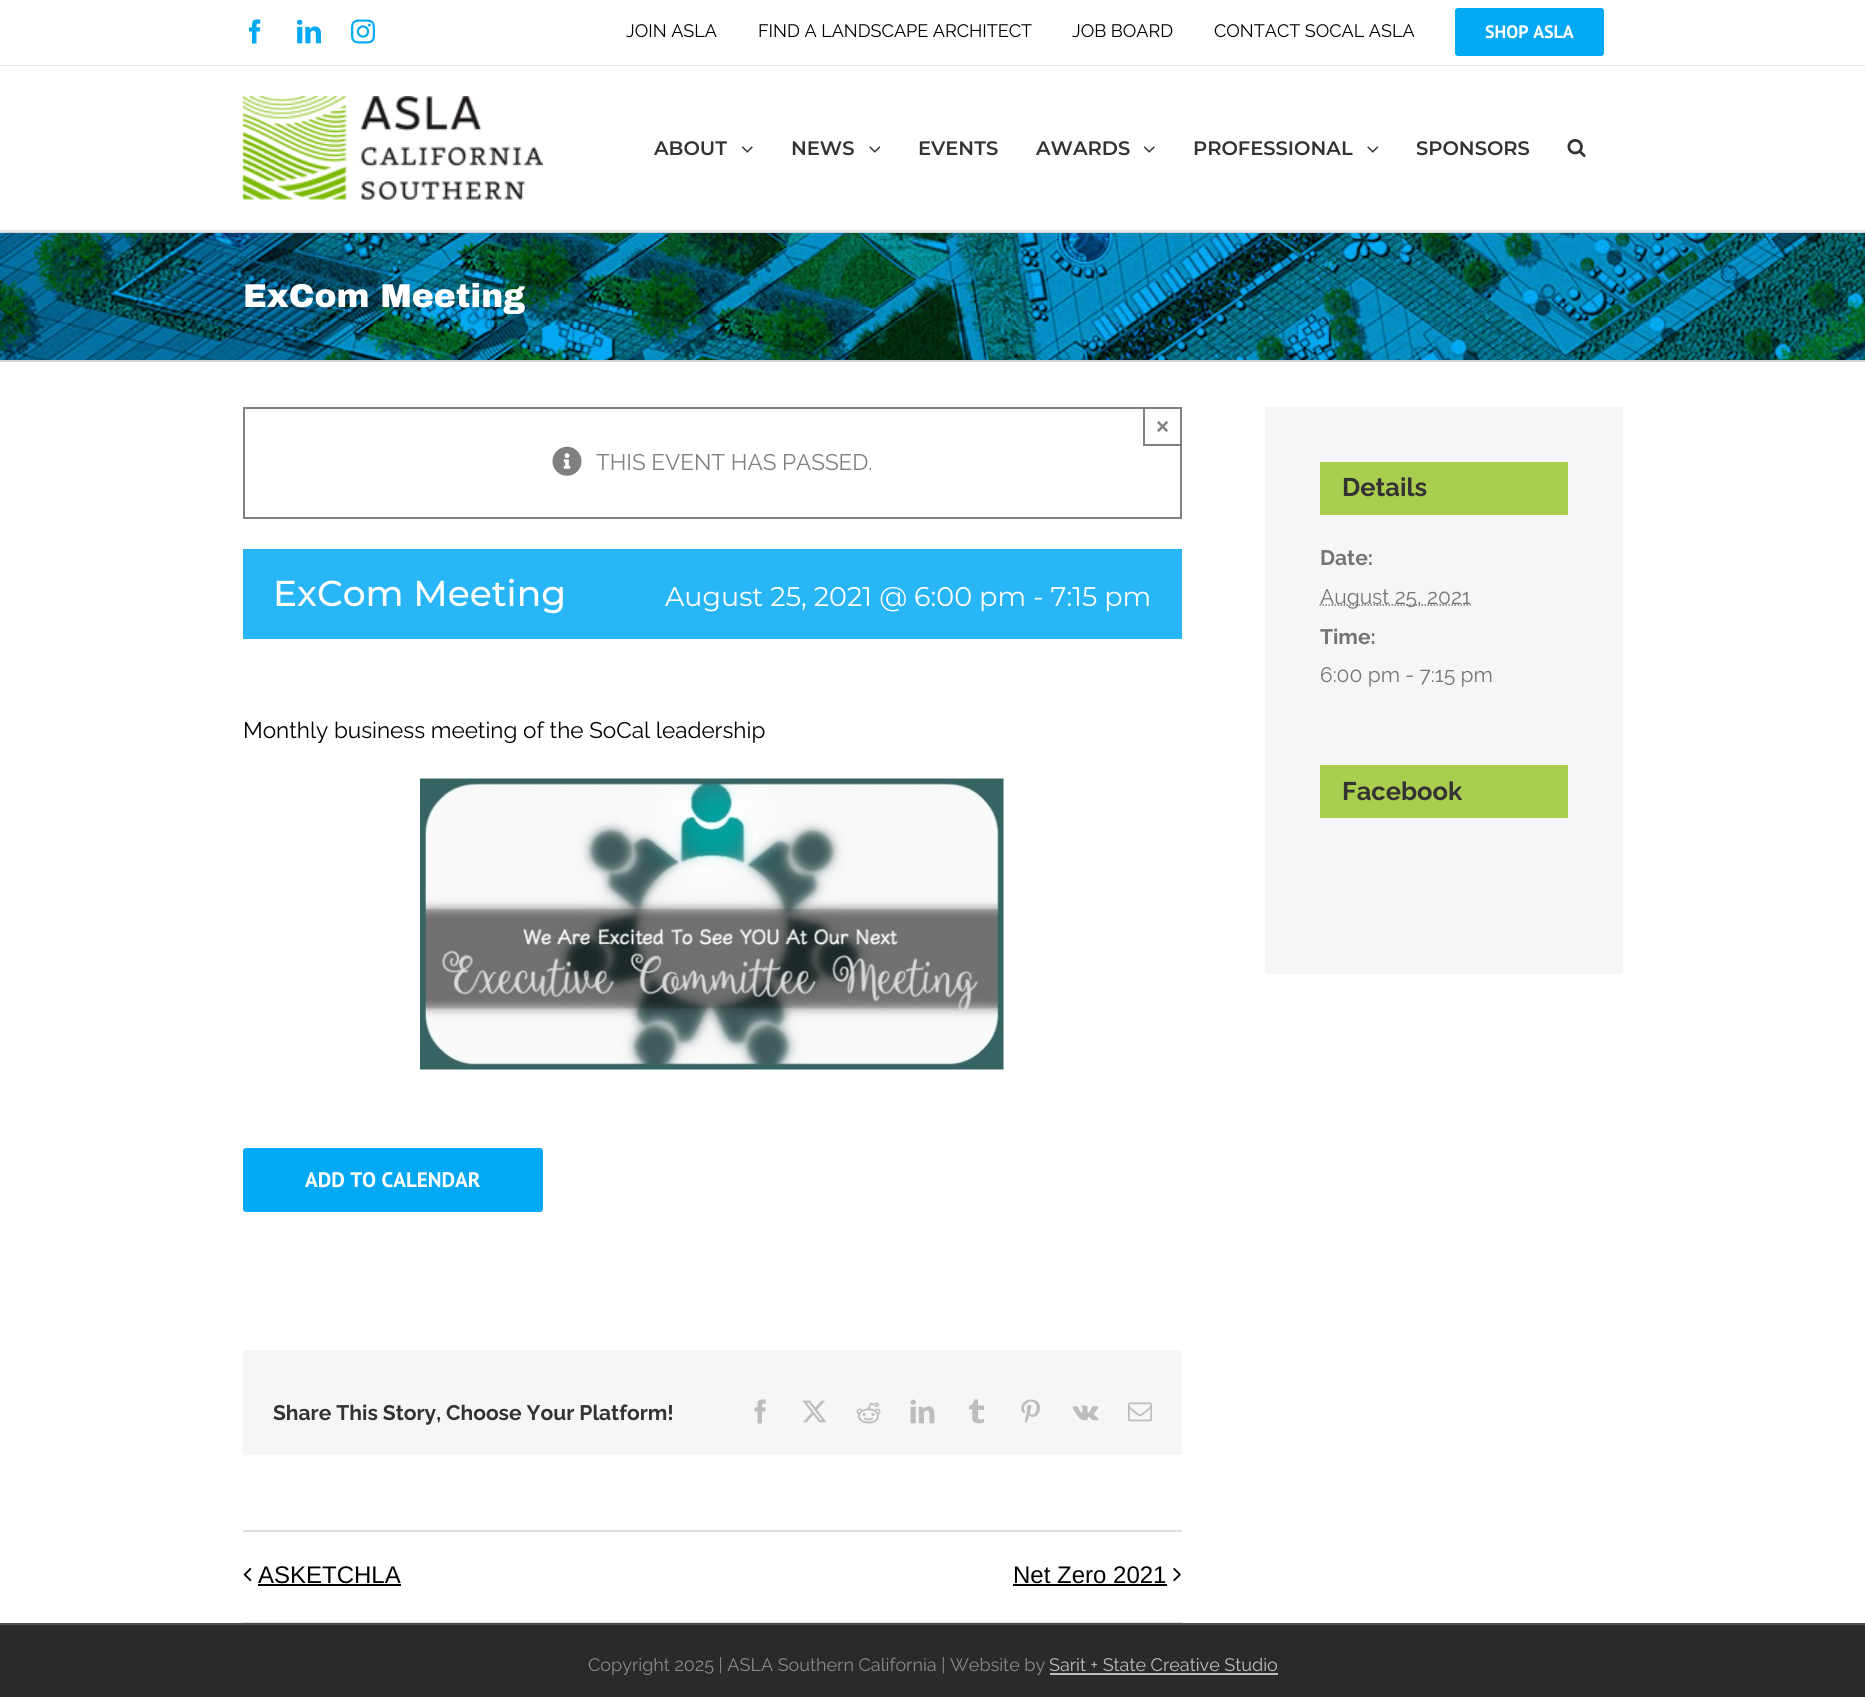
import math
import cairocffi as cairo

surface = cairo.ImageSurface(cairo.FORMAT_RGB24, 1865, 1697)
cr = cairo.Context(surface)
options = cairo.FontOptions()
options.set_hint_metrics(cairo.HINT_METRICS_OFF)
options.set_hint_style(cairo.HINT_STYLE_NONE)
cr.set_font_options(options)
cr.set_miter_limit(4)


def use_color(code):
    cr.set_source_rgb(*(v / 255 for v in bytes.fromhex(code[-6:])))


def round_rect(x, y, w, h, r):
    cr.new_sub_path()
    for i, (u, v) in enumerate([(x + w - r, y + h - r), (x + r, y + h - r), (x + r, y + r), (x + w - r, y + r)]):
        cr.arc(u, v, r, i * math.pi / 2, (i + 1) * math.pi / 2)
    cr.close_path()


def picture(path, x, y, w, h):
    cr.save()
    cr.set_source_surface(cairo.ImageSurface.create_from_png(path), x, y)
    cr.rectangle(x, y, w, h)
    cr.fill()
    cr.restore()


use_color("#ffffff")
cr.paint()
use_color("#e8e8e8")
cr.rectangle(0, 65, 1865, 1)
cr.fill()
picture("img1.png", 249, 19, 12, 25)
picture("img2.png", 297, 19, 24, 25)
picture("img3.png", 351, 19, 24, 25)
cr.select_font_face("Raleway")
cr.set_font_size(18)
use_color("#000000")
cr.move_to(626, 37)
cr.show_text("JOIN ASLA")
cr.move_to(758, 37)
cr.show_text("FIND A LANDSCAPE ARCHITECT")
cr.move_to(1072, 37)
cr.show_text("JOB BOARD")
cr.move_to(1214, 37)
cr.show_text("CONTACT SOCAL ASLA")
use_color("#03a9f4")
round_rect(1455, 8, 149, 48, 3)
cr.fill()
cr.select_font_face("PT Sans", cairo.FONT_SLANT_NORMAL, cairo.FONT_WEIGHT_BOLD)
use_color("#ffffff")
cr.move_to(1485, 38)
cr.show_text("SHOP ASLA")
use_color("#e8e8e8")
cr.rectangle(0, 230, 1865, 2)
cr.fill()
picture("img4.png", 242, 96, 301, 104)
cr.select_font_face("Montserrat SemiBold")
cr.set_font_size(19.5)
use_color("#333333")
cr.move_to(654, 155)
cr.show_text("ABOUT")
picture("img5.png", 741, 146, 12, 7)
cr.move_to(791, 155)
cr.show_text("NEWS")
picture("img6.png", 869, 146, 12, 7)
cr.move_to(918, 155)
cr.show_text("EVENTS")
cr.move_to(1036, 155)
cr.show_text("AWARDS")
picture("img5.png", 1143, 146, 12, 7)
cr.move_to(1193, 155)
cr.show_text("PROFESSIONAL")
picture("img6.png", 1367, 146, 12, 7)
cr.move_to(1416, 155)
cr.show_text("SPONSORS")
picture("img7.png", 1567, 139, 19, 19)
picture("img8.png", 0, 233, 1865, 127)
use_color("#d2d3d4")
cr.rectangle(0, 232, 1865, 1)
cr.fill()
cr.rectangle(0, 360, 1865, 2)
cr.fill()
cr.select_font_face("Archivo Black Black")
cr.set_font_size(33)
use_color("#ffffff")
cr.move_to(243, 307)
cr.show_text("ExCom Meeting")
cr.rectangle(244, 408, 937, 110)
use_color("#808080")
cr.stroke()
cr.rectangle(1143, 444, 39, 2)
cr.fill()
cr.rectangle(1143, 407, 2, 39)
cr.fill()
cr.select_font_face("Liberation Sans", cairo.FONT_SLANT_NORMAL, cairo.FONT_WEIGHT_BOLD)
cr.set_font_size(22.5)
cr.move_to(1156, 434)
cr.show_text("×")
picture("img9.png", 552, 446, 30, 30)
cr.select_font_face("Raleway")
cr.move_to(596, 470)
cr.show_text("THIS EVENT HAS PASSED.")
use_color("#29b6f6")
cr.rectangle(243, 549, 939, 90)
cr.fill()
cr.select_font_face("Montserrat Medium")
cr.set_font_size(36)
use_color("#ffffff")
cr.move_to(273, 606)
cr.show_text("ExCom Meeting")
cr.select_font_face("Montserrat")
cr.set_font_size(27)
cr.move_to(665, 606)
cr.show_text("August 25, 2021 @ 6:00 pm - 7:15 pm")
cr.select_font_face("Raleway")
cr.set_font_size(22.5)
use_color("#000000")
cr.move_to(243, 738)
cr.show_text("Monthly business meeting of the SoCal leadership")
picture("img10.png", 420, 778, 584, 292)
use_color("#03a9f4")
round_rect(243, 1148, 300, 64, 3)
cr.fill()
cr.select_font_face("PT Sans", cairo.FONT_SLANT_NORMAL, cairo.FONT_WEIGHT_BOLD)
cr.set_font_size(21)
use_color("#ffffff")
cr.move_to(305, 1187)
cr.show_text("ADD TO CALENDAR")
use_color("#f6f6f6")
cr.rectangle(243, 1350, 939, 105)
cr.fill()
cr.select_font_face("Raleway", cairo.FONT_SLANT_NORMAL, cairo.FONT_WEIGHT_BOLD)
use_color("#333333")
cr.move_to(273, 1420)
cr.show_text("Share This Story, Choose Your Platform!")
picture("img11.png", 754, 1399, 12, 25)
picture("img12.png", 802, 1400, 25, 23)
picture("img13.png", 856, 1402, 25, 22)
picture("img14.png", 910, 1399, 25, 25)
picture("img15.png", 969, 1399, 15, 25)
picture("img16.png", 1021, 1399, 19, 25)
picture("img17.png", 1072, 1405, 27, 16)
picture("img18.png", 1128, 1402, 24, 20)
use_color("#e0dede")
cr.rectangle(243, 1530, 939, 2)
cr.fill()
cr.rectangle(243, 1622, 939, 1)
cr.fill()
picture("img19.png", 243, 1567, 9, 15)
cr.select_font_face("Liberation Sans")
cr.set_font_size(24)
use_color("#000000")
cr.move_to(258, 1583)
cr.show_text("ASKETCHLA")
cr.rectangle(258, 1584, 143, 2)
cr.fill()
cr.move_to(1013, 1583)
cr.show_text("Net Zero 2021")
cr.rectangle(1013, 1584, 154, 2)
cr.fill()
picture("img20.png", 1173, 1567, 8, 15)
use_color("#f6f6f6")
cr.rectangle(1265, 407, 358, 567)
cr.fill()
use_color("#aace4e")
cr.rectangle(1320, 462, 248, 53)
cr.fill()
cr.select_font_face("Raleway", cairo.FONT_SLANT_NORMAL, cairo.FONT_WEIGHT_BOLD)
cr.set_font_size(25.5)
use_color("#333333")
cr.move_to(1342, 496)
cr.show_text("Details")
cr.set_font_size(21)
use_color("#747474")
cr.move_to(1320, 565)
cr.show_text("Date:")
cr.new_path()
cr.move_to(1319.5, 605)
cr.line_to(1470.5, 605)
cr.set_line_width(1.5)
cr.set_dash([1.5, 1.5])
cr.stroke()
cr.select_font_face("Raleway")
cr.move_to(1320, 604)
cr.show_text("August 25, 2021")
cr.select_font_face("Raleway", cairo.FONT_SLANT_NORMAL, cairo.FONT_WEIGHT_BOLD)
cr.move_to(1320, 644)
cr.show_text("Time:")
cr.select_font_face("Raleway")
cr.move_to(1320, 682)
cr.show_text("6:00 pm - 7:15 pm")
use_color("#aace4e")
cr.rectangle(1320, 765, 248, 53)
cr.fill()
cr.select_font_face("Raleway", cairo.FONT_SLANT_NORMAL, cairo.FONT_WEIGHT_BOLD)
cr.set_font_size(25.5)
use_color("#333333")
cr.move_to(1342, 800)
cr.show_text("Facebook")
use_color("#282a2b")
cr.rectangle(0, 1625, 1865, 72)
cr.fill()
use_color("#4b4c4d")
cr.rectangle(0, 1623, 1865, 2)
cr.fill()
cr.select_font_face("Raleway")
cr.set_font_size(18)
use_color("#8c8989")
cr.move_to(588, 1671)
cr.show_text("Copyright 2025 | ASLA Southern California | Website by")
use_color("#bfbfbf")
cr.move_to(1049, 1671)
cr.show_text("Sarit + State Creative Studio")
cr.rectangle(1050, 1673, 228, 2)
cr.fill()
surface.write_to_png("result.png")
